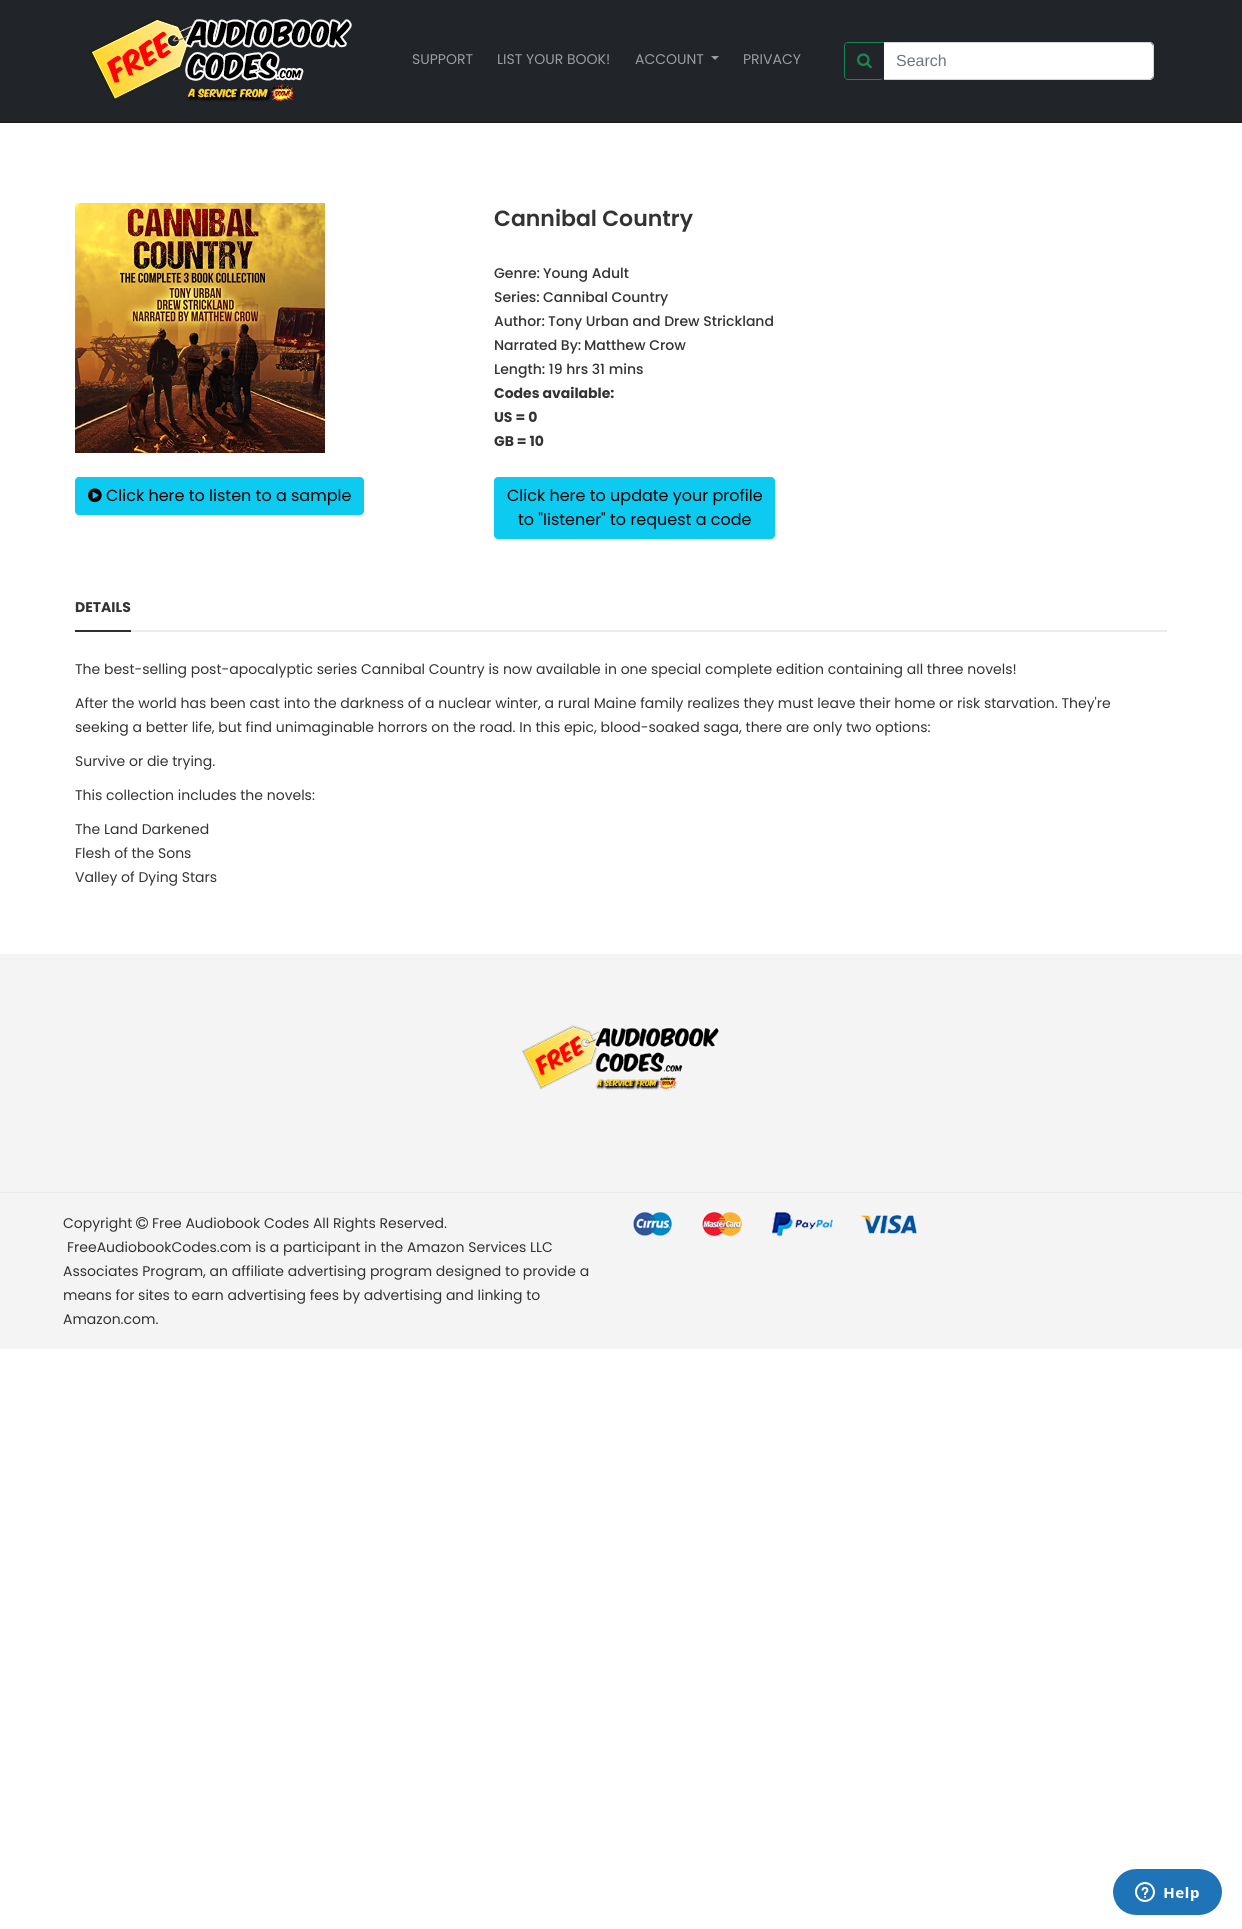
import math
import cairocffi as cairo

surface = cairo.ImageSurface(cairo.FORMAT_RGB24, 1242, 1929)
cr = cairo.Context(surface)
options = cairo.FontOptions()
options.set_hint_metrics(cairo.HINT_METRICS_OFF)
options.set_hint_style(cairo.HINT_STYLE_NONE)
cr.set_font_options(options)
cr.set_miter_limit(4)


def use_color(code):
    cr.set_source_rgb(*(v / 255 for v in bytes.fromhex(code[-6:])))


def round_rect(x, y, w, h, r):
    cr.new_sub_path()
    for i, (u, v) in enumerate([(x + w - r, y + h - r), (x + r, y + h - r), (x + r, y + r), (x + w - r, y + r)]):
        cr.arc(u, v, r, i * math.pi / 2, (i + 1) * math.pi / 2)
    cr.close_path()


def picture(path, x, y, w, h):
    cr.save()
    cr.set_source_surface(cairo.ImageSurface.create_from_png(path), x, y)
    cr.rectangle(x, y, w, h)
    cr.fill()
    cr.restore()


use_color("#ffffff")
cr.paint()
use_color("#1a1a1a")
cr.rectangle(0, 122, 1242, 1)
cr.fill()
use_color("#212529")
cr.rectangle(0, 0, 1242, 122)
cr.fill()
picture("img1.png", 89, 18, 263, 84)
cr.select_font_face("Poppins")
cr.set_font_size(14)
use_color("#9b9d9f")
cr.move_to(412, 64)
cr.show_text("SUPPORT")
cr.move_to(497, 64)
cr.show_text("LIST YOUR BOOK!")
cr.move_to(635, 64)
cr.show_text("ACCOUNT")
cr.new_path()
cr.move_to(711, 56)
cr.line_to(719, 56)
cr.line_to(715, 60)
cr.close_path()
cr.fill()
cr.move_to(743, 64)
cr.show_text("PRIVACY")
use_color("#198754")
cr.set_fill_rule(cairo.FILL_RULE_EVEN_ODD)
cr.new_path()
cr.move_to(848, 42)
cr.line_to(884, 42)
cr.line_to(884, 76)
cr.curve_to(884, 78, 882, 80, 880, 80)
cr.line_to(848, 80)
cr.curve_to(846, 80, 844, 78, 844, 76)
cr.line_to(844, 46)
cr.curve_to(844, 44, 846, 42, 848, 42)
cr.close_path()
cr.move_to(848, 43)
cr.line_to(884, 43)
cr.line_to(884, 76)
cr.curve_to(884, 78, 882, 79, 880, 79)
cr.line_to(848, 79)
cr.curve_to(846, 79, 845, 78, 845, 76)
cr.line_to(845, 46)
cr.curve_to(845, 44, 846, 43, 848, 43)
cr.close_path()
cr.fill()
picture("img2.png", 857, 53, 15, 16)
use_color("#ffffff")
cr.new_path()
cr.move_to(884, 43)
cr.line_to(1150, 43)
cr.curve_to(1151.5, 43, 1153, 44.5, 1153, 46)
cr.line_to(1153, 76)
cr.curve_to(1153, 77.5, 1151.5, 79, 1150, 79)
cr.line_to(884, 79)
cr.close_path()
cr.fill()
use_color("#ced4da")
cr.new_path()
cr.move_to(884, 42)
cr.line_to(1150, 42)
cr.curve_to(1152, 42, 1154, 44, 1154, 46)
cr.line_to(1154, 76)
cr.curve_to(1154, 78, 1152, 80, 1150, 80)
cr.line_to(884, 80)
cr.close_path()
cr.move_to(884, 43)
cr.line_to(1150, 43)
cr.curve_to(1152, 43, 1153, 44, 1153, 46)
cr.line_to(1153, 76)
cr.curve_to(1153, 78, 1152, 79, 1150, 79)
cr.line_to(884, 79)
cr.close_path()
cr.fill()
cr.select_font_face("Liberation Sans")
cr.set_font_size(16)
use_color("#6c757d")
cr.move_to(896, 66)
cr.show_text("Search")
picture("img3.png", 75, 203, 250, 250)
use_color("#0dcaf0")
round_rect(75.5, 477.5, 288, 37, 3.5)
cr.fill_preserve()
cr.set_line_width(1)
cr.stroke()
picture("img4.png", 88, 488, 14, 15)
cr.select_font_face("Poppins")
use_color("#000000")
cr.move_to(106, 501)
cr.show_text("Click here to listen to a sample")
cr.select_font_face("Poppins SemiBold")
cr.set_font_size(22)
use_color("#333333")
cr.move_to(494, 226)
cr.show_text("Cannibal Country")
cr.select_font_face("Poppins Medium")
cr.set_font_size(14)
cr.move_to(494, 278)
cr.show_text("Genre:")
cr.move_to(543, 278)
cr.show_text("Young Adult")
cr.move_to(494, 302)
cr.show_text("Series:")
cr.move_to(543, 302)
cr.show_text("Cannibal Country")
cr.move_to(494, 326)
cr.show_text("Author:")
cr.move_to(548, 326)
cr.show_text("Tony Urban and Drew Strickland")
cr.move_to(494, 350)
cr.show_text("Narrated By:")
cr.move_to(584, 350)
cr.show_text("Matthew Crow")
cr.move_to(494, 374)
cr.show_text("Length: 19 hrs 31 mins")
cr.select_font_face("Poppins", cairo.FONT_SLANT_NORMAL, cairo.FONT_WEIGHT_BOLD)
cr.move_to(494, 398)
cr.show_text("Codes available:")
cr.move_to(494, 422)
cr.show_text("US = 0")
cr.move_to(494, 446)
cr.show_text("GB = 10")
use_color("#0dcaf0")
round_rect(494.5, 477.5, 280, 61, 3.5)
cr.fill_preserve()
cr.stroke()
cr.select_font_face("Poppins")
cr.set_font_size(16)
use_color("#000000")
cr.move_to(507, 501)
cr.show_text("Click here to update your profile")
cr.move_to(518, 525)
cr.show_text("to \"listener\" to request a code")
use_color("#ebebeb")
cr.rectangle(131, 630, 1036, 2)
cr.fill()
cr.select_font_face("Poppins", cairo.FONT_SLANT_NORMAL, cairo.FONT_WEIGHT_BOLD)
cr.set_font_size(14)
use_color("#333333")
cr.move_to(75, 612)
cr.show_text("DETAILS")
use_color("#2e2e2e")
cr.rectangle(75, 630, 56, 2)
cr.fill()
cr.select_font_face("Poppins")
use_color("#333333")
cr.move_to(75, 674)
cr.show_text("The best-selling post-apocalyptic series Cannibal Country is now available in one special complete edition containing all three novels!")
cr.move_to(75, 708)
cr.show_text("After the world has been cast into the darkness of a nuclear winter, a rural Maine family realizes they must leave their home or risk starvation. They're")
cr.move_to(75, 732)
cr.show_text("seeking a better life, but find unimaginable horrors on the road. In this epic, blood-soaked saga, there are only two options:")
cr.move_to(75, 766)
cr.show_text("Survive or die trying.")
cr.move_to(75, 800)
cr.show_text("This collection includes the novels:")
cr.move_to(75, 834)
cr.show_text("The Land Darkened")
cr.move_to(75, 858)
cr.show_text("Flesh of the Sons")
cr.move_to(75, 882)
cr.show_text("Valley of Dying Stars")
use_color("#f4f4f4")
cr.rectangle(0, 954, 1242, 395)
cr.fill()
use_color("#ebebeb")
cr.rectangle(0, 1192, 1242, 1)
cr.fill()
picture("img5.png", 521, 1025, 199, 65)
use_color("#333333")
cr.move_to(63, 1228)
cr.show_text("Copyright")
picture("img6.png", 136, 1217, 12, 12)
cr.move_to(152, 1228)
cr.show_text("Free Audiobook Codes All Rights Reserved.")
cr.move_to(67, 1252)
cr.show_text("FreeAudiobookCodes.com is a participant in the Amazon Services LLC")
cr.move_to(63, 1276)
cr.show_text("Associates Program, an affiliate advertising program designed to provide a")
cr.move_to(63, 1300)
cr.show_text("means for sites to earn advertising fees by advertising and linking to")
cr.move_to(63, 1324)
cr.show_text("Amazon.com.")
picture("img7.png", 633, 1212, 284, 24)
picture("img8.png", 1113, 1869, 109, 46)
surface.write_to_png("result.png")
